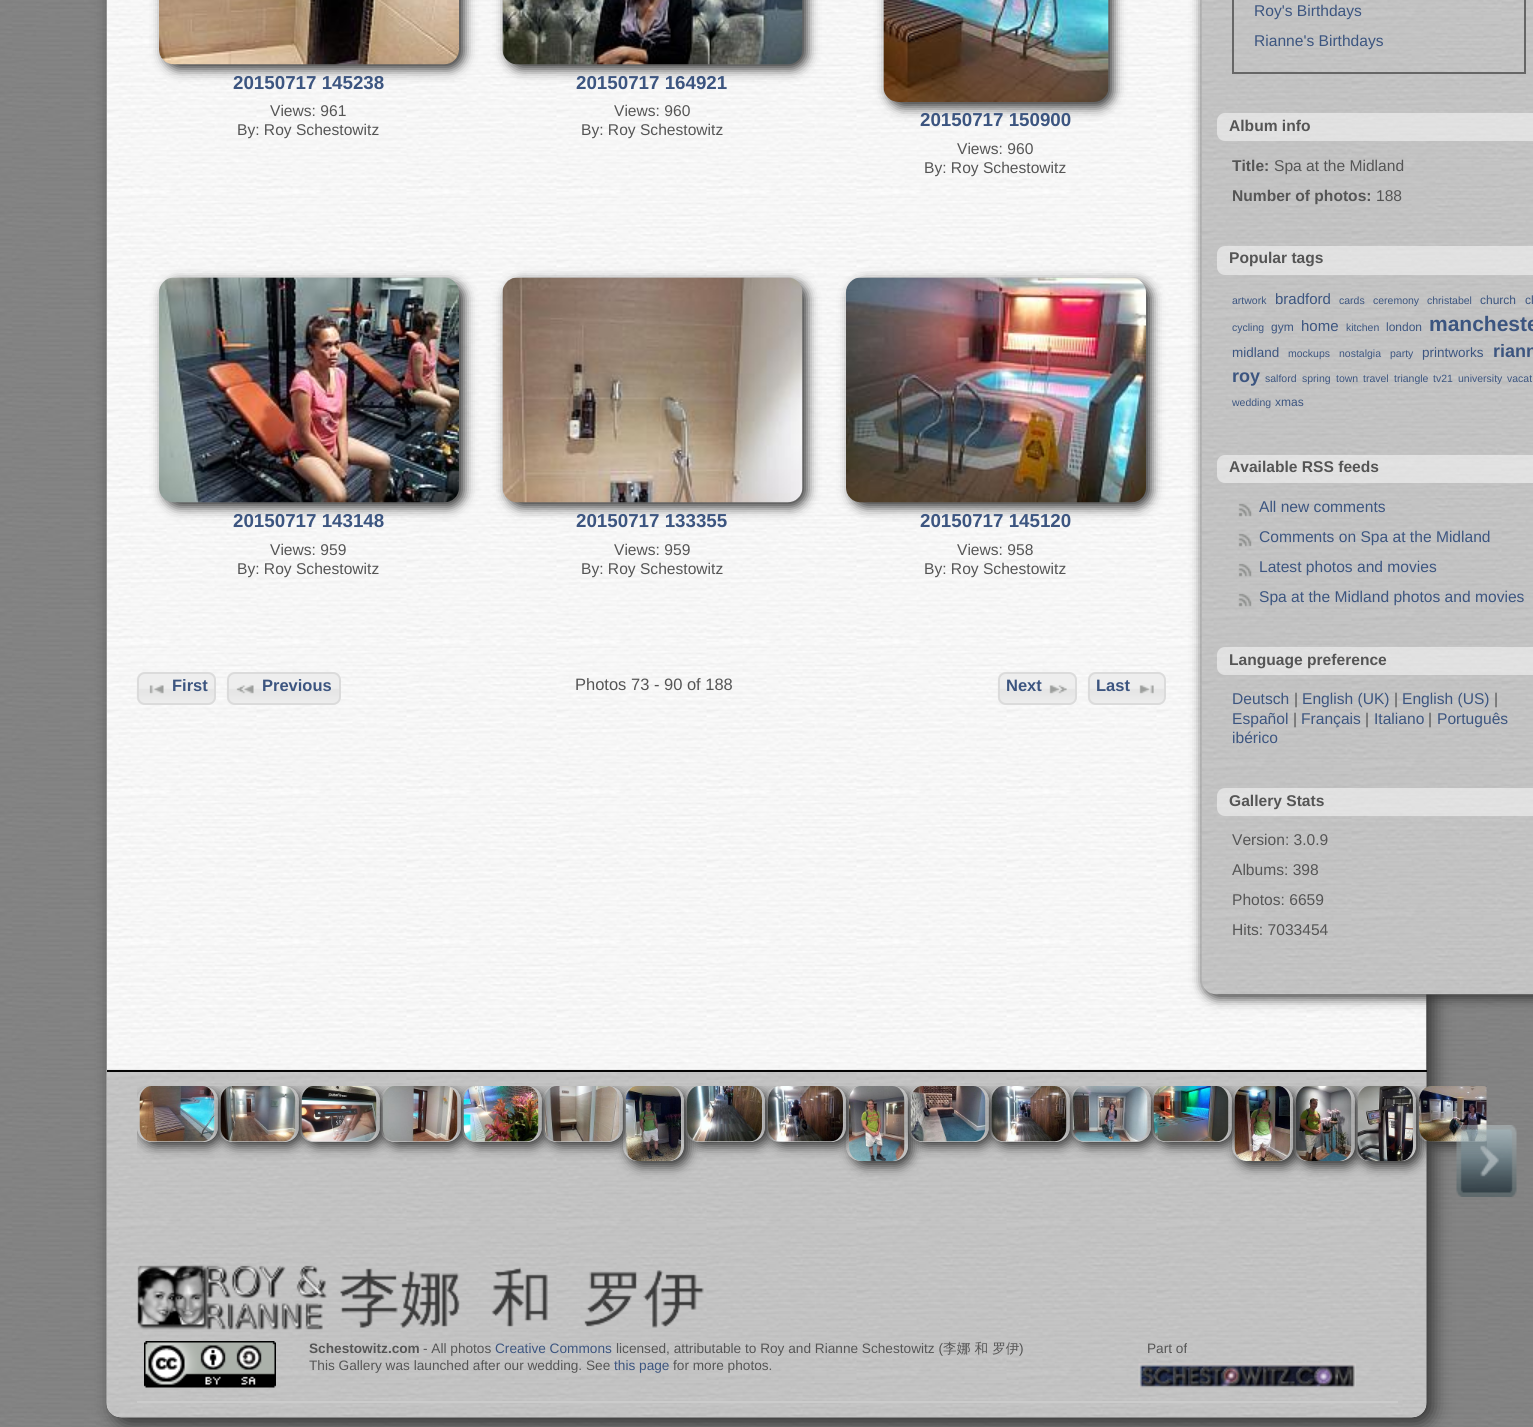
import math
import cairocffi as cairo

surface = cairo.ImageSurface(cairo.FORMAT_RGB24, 1533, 1427)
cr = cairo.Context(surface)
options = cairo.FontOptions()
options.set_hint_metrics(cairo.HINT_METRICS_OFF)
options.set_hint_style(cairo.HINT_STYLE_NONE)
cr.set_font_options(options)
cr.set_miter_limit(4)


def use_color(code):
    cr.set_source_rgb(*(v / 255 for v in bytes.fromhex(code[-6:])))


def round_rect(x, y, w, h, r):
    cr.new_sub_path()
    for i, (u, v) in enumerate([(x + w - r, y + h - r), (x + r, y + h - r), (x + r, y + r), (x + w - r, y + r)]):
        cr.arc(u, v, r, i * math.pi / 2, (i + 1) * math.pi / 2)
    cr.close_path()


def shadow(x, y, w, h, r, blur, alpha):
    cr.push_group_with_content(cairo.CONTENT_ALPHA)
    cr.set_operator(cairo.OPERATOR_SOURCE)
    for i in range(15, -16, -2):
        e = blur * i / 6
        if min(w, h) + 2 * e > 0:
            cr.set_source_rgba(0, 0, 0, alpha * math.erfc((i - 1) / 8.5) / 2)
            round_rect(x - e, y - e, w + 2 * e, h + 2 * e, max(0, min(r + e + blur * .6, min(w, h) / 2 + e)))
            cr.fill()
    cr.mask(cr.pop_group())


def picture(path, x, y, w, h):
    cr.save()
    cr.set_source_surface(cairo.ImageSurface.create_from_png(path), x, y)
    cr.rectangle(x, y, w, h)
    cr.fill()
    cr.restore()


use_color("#ffffff")
cr.paint()
picture("img1.png", 0, 0, 1533, 1427)
use_color("#333333")
shadow(113, -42, 1320, 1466, 15, 9, 1)
picture("img2.png", 106, 0, 1321, 1418)
shadow(164, -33, 300, 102, 15, 6, 1)
picture("img3.png", 159, 0, 300, 65)
cr.select_font_face("Liberation Sans", cairo.FONT_SLANT_NORMAL, cairo.FONT_WEIGHT_BOLD)
cr.set_font_size(18.75)
use_color("#3c5580")
cr.move_to(233, 89)
cr.show_text("20150717 145238")
cr.select_font_face("Liberation Sans")
cr.set_font_size(15.6)
use_color("#555555")
cr.move_to(270, 116)
cr.show_text("Views: 961")
cr.move_to(237, 135)
cr.show_text("By: Roy Schestowitz")
use_color("#333333")
shadow(507, -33, 300, 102, 15, 6, 1)
picture("img4.png", 502, 0, 301, 65)
cr.select_font_face("Liberation Sans", cairo.FONT_SLANT_NORMAL, cairo.FONT_WEIGHT_BOLD)
cr.set_font_size(18.75)
use_color("#3c5580")
cr.move_to(576, 89)
cr.show_text("20150717 164921")
cr.select_font_face("Liberation Sans")
cr.set_font_size(15.6)
use_color("#555555")
cr.move_to(614, 116)
cr.show_text("Views: 960")
cr.move_to(581, 135)
cr.show_text("By: Roy Schestowitz")
use_color("#333333")
shadow(888, -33, 225, 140, 15, 6, 1)
picture("img5.png", 883, 0, 226, 102)
cr.select_font_face("Liberation Sans", cairo.FONT_SLANT_NORMAL, cairo.FONT_WEIGHT_BOLD)
cr.set_font_size(18.75)
use_color("#3c5580")
cr.move_to(920, 126)
cr.show_text("20150717 150900")
cr.select_font_face("Liberation Sans")
cr.set_font_size(15.6)
use_color("#555555")
cr.move_to(957, 154)
cr.show_text("Views: 960")
cr.move_to(924, 173)
cr.show_text("By: Roy Schestowitz")
use_color("#333333")
shadow(164, 282, 300, 225, 15, 6, 1)
picture("img6.png", 159, 277, 300, 226)
cr.select_font_face("Liberation Sans", cairo.FONT_SLANT_NORMAL, cairo.FONT_WEIGHT_BOLD)
cr.set_font_size(18.75)
use_color("#3c5580")
cr.move_to(233, 527)
cr.show_text("20150717 143148")
cr.select_font_face("Liberation Sans")
cr.set_font_size(15.6)
use_color("#555555")
cr.move_to(270, 555)
cr.show_text("Views: 959")
cr.move_to(237, 574)
cr.show_text("By: Roy Schestowitz")
use_color("#333333")
shadow(507, 282, 300, 225, 15, 6, 1)
picture("img7.png", 502, 277, 301, 226)
cr.select_font_face("Liberation Sans", cairo.FONT_SLANT_NORMAL, cairo.FONT_WEIGHT_BOLD)
cr.set_font_size(18.75)
use_color("#3c5580")
cr.move_to(576, 527)
cr.show_text("20150717 133355")
cr.select_font_face("Liberation Sans")
cr.set_font_size(15.6)
use_color("#555555")
cr.move_to(614, 555)
cr.show_text("Views: 959")
cr.move_to(581, 574)
cr.show_text("By: Roy Schestowitz")
use_color("#333333")
shadow(851, 282, 300, 225, 15, 6, 1)
picture("img8.png", 846, 277, 300, 226)
cr.select_font_face("Liberation Sans", cairo.FONT_SLANT_NORMAL, cairo.FONT_WEIGHT_BOLD)
cr.set_font_size(18.75)
use_color("#3c5580")
cr.move_to(920, 527)
cr.show_text("20150717 145120")
cr.select_font_face("Liberation Sans")
cr.set_font_size(15.6)
use_color("#555555")
cr.move_to(957, 555)
cr.show_text("Views: 958")
cr.move_to(924, 574)
cr.show_text("By: Roy Schestowitz")
picture("img9.png", 136, 672, 80, 33)
round_rect(138, 673, 77, 31, 7)
use_color("#dbdbdb")
cr.stroke()
picture("img10.png", 149, 685, 15, 9)
cr.select_font_face("Liberation Sans", cairo.FONT_SLANT_NORMAL, cairo.FONT_WEIGHT_BOLD)
cr.set_font_size(16.5)
use_color("#3c5580")
cr.move_to(172, 691)
cr.show_text("First")
picture("img11.png", 226, 672, 114, 33)
round_rect(228, 673, 112, 31, 7)
use_color("#dbdbdb")
cr.stroke()
picture("img12.png", 236, 685, 18, 9)
use_color("#3c5580")
cr.move_to(262, 691)
cr.show_text("Previous")
cr.select_font_face("Liberation Sans")
use_color("#555555")
cr.move_to(575, 690)
cr.show_text("Photos 73 - 90 of 188")
picture("img13.png", 997, 672, 80, 33)
round_rect(999, 673, 77, 31, 7)
use_color("#dbdbdb")
cr.stroke()
cr.select_font_face("Liberation Sans", cairo.FONT_SLANT_NORMAL, cairo.FONT_WEIGHT_BOLD)
use_color("#3c5580")
cr.move_to(1006, 691)
cr.show_text("Next")
picture("img14.png", 1049, 685, 18, 9)
picture("img15.png", 1087, 672, 78, 33)
round_rect(1089, 673, 76, 31, 7)
use_color("#dbdbdb")
cr.stroke()
use_color("#3c5580")
cr.move_to(1096, 691)
cr.show_text("Last")
picture("img16.png", 1139, 685, 15, 9)
use_color("#333333")
shadow(1203, -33, 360, 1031, 15, 6, 1)
picture("img17.png", 1201, 0, 332, 995)
cr.rectangle(1233, -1, 292, 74)
use_color("#666666")
cr.stroke()
cr.select_font_face("Liberation Sans")
cr.set_font_size(15.6)
use_color("#3c5580")
cr.move_to(1254, 16)
cr.show_text("Roy's Birthdays")
cr.move_to(1254, 46)
cr.show_text("Rianne's Birthdays")
cr.set_source_rgba(1, 1, 1, 0.5)
round_rect(1217, 113, 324, 28, 8)
cr.fill()
cr.select_font_face("Liberation Sans", cairo.FONT_SLANT_NORMAL, cairo.FONT_WEIGHT_BOLD)
use_color("#555555")
cr.move_to(1229, 131)
cr.show_text("Album info")
cr.move_to(1232, 171)
cr.show_text("Title:")
cr.select_font_face("Liberation Sans")
cr.move_to(1274, 171)
cr.show_text("Spa at the Midland")
cr.select_font_face("Liberation Sans", cairo.FONT_SLANT_NORMAL, cairo.FONT_WEIGHT_BOLD)
cr.move_to(1232, 201)
cr.show_text("Number of photos:")
cr.select_font_face("Liberation Sans")
cr.move_to(1376, 201)
cr.show_text("188")
cr.set_source_rgba(1, 1, 1, 0.5)
round_rect(1217, 246, 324, 29, 8)
cr.fill()
cr.select_font_face("Liberation Sans", cairo.FONT_SLANT_NORMAL, cairo.FONT_WEIGHT_BOLD)
use_color("#555555")
cr.move_to(1229, 263)
cr.show_text("Popular tags")
cr.select_font_face("Liberation Sans")
cr.set_font_size(10.5)
use_color("#3c5580")
cr.move_to(1232, 304)
cr.show_text("artwork")
cr.set_font_size(15)
cr.move_to(1275, 304)
cr.show_text("bradford")
cr.set_font_size(10.5)
cr.move_to(1339, 304)
cr.show_text("cards")
cr.move_to(1373, 304)
cr.show_text("ceremony")
cr.move_to(1427, 304)
cr.show_text("christabel")
cr.set_font_size(12)
cr.move_to(1480, 304)
cr.show_text("church")
cr.move_to(1525, 304)
cr.show_text("cl")
cr.set_font_size(10.5)
cr.move_to(1232, 331)
cr.show_text("cycling")
cr.set_font_size(12)
cr.move_to(1271, 331)
cr.show_text("gym")
cr.set_font_size(15)
cr.move_to(1301, 331)
cr.show_text("home")
cr.set_font_size(10.5)
cr.move_to(1346, 331)
cr.show_text("kitchen")
cr.set_font_size(12)
cr.move_to(1386, 331)
cr.show_text("london")
cr.select_font_face("Liberation Sans", cairo.FONT_SLANT_NORMAL, cairo.FONT_WEIGHT_BOLD)
cr.set_font_size(21)
cr.move_to(1429, 331)
cr.show_text("mancheste")
cr.select_font_face("Liberation Sans")
cr.set_font_size(13.5)
cr.move_to(1232, 357)
cr.show_text("midland")
cr.set_font_size(10.5)
cr.move_to(1288, 357)
cr.show_text("mockups")
cr.move_to(1339, 357)
cr.show_text("nostalgia")
cr.move_to(1390, 357)
cr.show_text("party")
cr.set_font_size(13.5)
cr.move_to(1422, 357)
cr.show_text("printworks")
cr.select_font_face("Liberation Sans", cairo.FONT_SLANT_NORMAL, cairo.FONT_WEIGHT_BOLD)
cr.set_font_size(18)
cr.move_to(1493, 357)
cr.show_text("riann")
cr.move_to(1232, 382)
cr.show_text("roy")
cr.select_font_face("Liberation Sans")
cr.set_font_size(10.5)
cr.move_to(1265, 382)
cr.show_text("salford")
cr.move_to(1302, 382)
cr.show_text("spring")
cr.move_to(1336, 382)
cr.show_text("town")
cr.move_to(1363, 382)
cr.show_text("travel")
cr.move_to(1394, 382)
cr.show_text("triangle")
cr.move_to(1433, 382)
cr.show_text("tv21")
cr.move_to(1458, 382)
cr.show_text("university")
cr.move_to(1507, 382)
cr.show_text("vacat")
cr.move_to(1232, 406)
cr.show_text("wedding")
cr.set_font_size(12)
cr.move_to(1275, 406)
cr.show_text("xmas")
cr.set_source_rgba(1, 1, 1, 0.5)
round_rect(1217, 455, 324, 28, 8)
cr.fill()
cr.select_font_face("Liberation Sans", cairo.FONT_SLANT_NORMAL, cairo.FONT_WEIGHT_BOLD)
cr.set_font_size(15.6)
use_color("#555555")
cr.move_to(1229, 472)
cr.show_text("Available RSS feeds")
picture("img18.png", 1238, 503, 14, 14)
cr.select_font_face("Liberation Sans")
use_color("#3c5580")
cr.move_to(1259, 512)
cr.show_text("All new comments")
picture("img19.png", 1238, 533, 14, 14)
cr.move_to(1259, 542)
cr.show_text("Comments on Spa at the Midland")
picture("img20.png", 1238, 563, 14, 14)
cr.move_to(1259, 572)
cr.show_text("Latest photos and movies")
picture("img21.png", 1238, 593, 14, 14)
cr.move_to(1259, 602)
cr.show_text("Spa at the Midland photos and movies")
cr.set_source_rgba(1, 1, 1, 0.5)
round_rect(1217, 647, 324, 28, 8)
cr.fill()
cr.select_font_face("Liberation Sans", cairo.FONT_SLANT_NORMAL, cairo.FONT_WEIGHT_BOLD)
use_color("#555555")
cr.move_to(1229, 665)
cr.show_text("Language preference")
cr.select_font_face("Liberation Sans")
use_color("#3c5580")
cr.move_to(1232, 704)
cr.show_text("Deutsch")
use_color("#555555")
cr.move_to(1294, 704)
cr.show_text("|")
use_color("#3c5580")
cr.move_to(1302, 704)
cr.show_text("English (UK)")
use_color("#555555")
cr.move_to(1394, 704)
cr.show_text("|")
use_color("#3c5580")
cr.move_to(1402, 704)
cr.show_text("English (US)")
use_color("#555555")
cr.move_to(1494, 704)
cr.show_text("|")
use_color("#3c5580")
cr.move_to(1232, 724)
cr.show_text("Español")
use_color("#555555")
cr.move_to(1293, 724)
cr.show_text("|")
use_color("#3c5580")
cr.move_to(1301, 724)
cr.show_text("Français")
use_color("#555555")
cr.move_to(1365, 724)
cr.show_text("|")
use_color("#3c5580")
cr.move_to(1374, 724)
cr.show_text("Italiano")
use_color("#555555")
cr.move_to(1428, 724)
cr.show_text("|")
use_color("#3c5580")
cr.move_to(1437, 724)
cr.show_text("Português")
cr.move_to(1232, 743)
cr.show_text("ibérico")
cr.set_source_rgba(1, 1, 1, 0.5)
round_rect(1217, 788, 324, 28, 8)
cr.fill()
cr.select_font_face("Liberation Sans", cairo.FONT_SLANT_NORMAL, cairo.FONT_WEIGHT_BOLD)
use_color("#555555")
cr.move_to(1229, 806)
cr.show_text("Gallery Stats")
cr.select_font_face("Liberation Sans")
cr.move_to(1232, 845)
cr.show_text("Version: 3.0.9")
cr.move_to(1232, 875)
cr.show_text("Albums: 398")
cr.move_to(1232, 905)
cr.show_text("Photos: 6659")
cr.move_to(1232, 935)
cr.show_text("Hits: 7033454")
picture("img22.png", 106, 1069, 1321, 349)
use_color("#050505")
cr.rectangle(107, 1070, 1320, 2)
cr.fill()
cr.save()
cr.rectangle(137, 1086, 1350, 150)
cr.clip()
cr.set_fill_rule(cairo.FILL_RULE_EVEN_ODD)
cr.new_path()
cr.move_to(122, 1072)
cr.line_to(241, 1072)
cr.line_to(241, 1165)
cr.line_to(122, 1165)
cr.close_path()
cr.move_to(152, 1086)
cr.line_to(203, 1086)
cr.curve_to(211.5, 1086, 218, 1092.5, 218, 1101)
cr.line_to(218, 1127)
cr.curve_to(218, 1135.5, 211.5, 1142, 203, 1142)
cr.line_to(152, 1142)
cr.curve_to(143.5, 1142, 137, 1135.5, 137, 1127)
cr.line_to(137, 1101)
cr.curve_to(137, 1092.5, 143.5, 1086, 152, 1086)
cr.close_path()
cr.clip()
use_color("#333333")
shadow(141, 1091, 81, 55, 15, 6, 1)
cr.restore()
picture("img23.png", 139, 1086, 76, 56)
cr.save()
cr.rectangle(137, 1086, 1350, 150)
cr.clip()
cr.set_fill_rule(cairo.FILL_RULE_EVEN_ODD)
cr.new_path()
cr.move_to(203, 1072)
cr.line_to(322, 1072)
cr.line_to(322, 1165)
cr.line_to(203, 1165)
cr.close_path()
cr.move_to(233, 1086)
cr.line_to(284, 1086)
cr.curve_to(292.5, 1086, 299, 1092.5, 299, 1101)
cr.line_to(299, 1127)
cr.curve_to(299, 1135.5, 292.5, 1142, 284, 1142)
cr.line_to(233, 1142)
cr.curve_to(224.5, 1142, 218, 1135.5, 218, 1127)
cr.line_to(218, 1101)
cr.curve_to(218, 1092.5, 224.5, 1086, 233, 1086)
cr.close_path()
cr.clip()
use_color("#333333")
shadow(222, 1091, 81, 55, 15, 6, 1)
cr.restore()
picture("img24.png", 220, 1086, 76, 56)
cr.save()
cr.rectangle(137, 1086, 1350, 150)
cr.clip()
cr.set_fill_rule(cairo.FILL_RULE_EVEN_ODD)
cr.new_path()
cr.move_to(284, 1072)
cr.line_to(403, 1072)
cr.line_to(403, 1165)
cr.line_to(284, 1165)
cr.close_path()
cr.move_to(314, 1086)
cr.line_to(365, 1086)
cr.curve_to(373.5, 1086, 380, 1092.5, 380, 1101)
cr.line_to(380, 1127)
cr.curve_to(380, 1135.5, 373.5, 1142, 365, 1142)
cr.line_to(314, 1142)
cr.curve_to(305.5, 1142, 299, 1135.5, 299, 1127)
cr.line_to(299, 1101)
cr.curve_to(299, 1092.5, 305.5, 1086, 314, 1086)
cr.close_path()
cr.clip()
use_color("#333333")
shadow(303, 1091, 81, 55, 15, 6, 1)
cr.restore()
picture("img25.png", 301, 1086, 76, 56)
cr.save()
cr.rectangle(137, 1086, 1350, 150)
cr.clip()
cr.set_fill_rule(cairo.FILL_RULE_EVEN_ODD)
cr.new_path()
cr.move_to(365, 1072)
cr.line_to(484, 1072)
cr.line_to(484, 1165)
cr.line_to(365, 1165)
cr.close_path()
cr.move_to(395, 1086)
cr.line_to(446, 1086)
cr.curve_to(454.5, 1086, 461, 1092.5, 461, 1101)
cr.line_to(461, 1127)
cr.curve_to(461, 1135.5, 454.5, 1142, 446, 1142)
cr.line_to(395, 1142)
cr.curve_to(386.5, 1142, 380, 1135.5, 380, 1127)
cr.line_to(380, 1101)
cr.curve_to(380, 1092.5, 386.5, 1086, 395, 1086)
cr.close_path()
cr.clip()
use_color("#333333")
shadow(384, 1091, 81, 55, 15, 6, 1)
cr.restore()
picture("img26.png", 382, 1086, 76, 56)
cr.save()
cr.rectangle(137, 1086, 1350, 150)
cr.clip()
cr.set_fill_rule(cairo.FILL_RULE_EVEN_ODD)
cr.new_path()
cr.move_to(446, 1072)
cr.line_to(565, 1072)
cr.line_to(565, 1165)
cr.line_to(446, 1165)
cr.close_path()
cr.move_to(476, 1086)
cr.line_to(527, 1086)
cr.curve_to(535.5, 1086, 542, 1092.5, 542, 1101)
cr.line_to(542, 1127)
cr.curve_to(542, 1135.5, 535.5, 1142, 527, 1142)
cr.line_to(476, 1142)
cr.curve_to(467.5, 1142, 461, 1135.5, 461, 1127)
cr.line_to(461, 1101)
cr.curve_to(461, 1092.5, 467.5, 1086, 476, 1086)
cr.close_path()
cr.clip()
use_color("#333333")
shadow(465, 1091, 81, 55, 15, 6, 1)
cr.restore()
picture("img27.png", 463, 1086, 76, 56)
cr.save()
cr.rectangle(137, 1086, 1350, 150)
cr.clip()
cr.set_fill_rule(cairo.FILL_RULE_EVEN_ODD)
cr.new_path()
cr.move_to(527, 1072)
cr.line_to(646, 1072)
cr.line_to(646, 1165)
cr.line_to(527, 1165)
cr.close_path()
cr.move_to(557, 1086)
cr.line_to(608, 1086)
cr.curve_to(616.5, 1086, 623, 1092.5, 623, 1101)
cr.line_to(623, 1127)
cr.curve_to(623, 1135.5, 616.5, 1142, 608, 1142)
cr.line_to(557, 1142)
cr.curve_to(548.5, 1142, 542, 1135.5, 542, 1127)
cr.line_to(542, 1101)
cr.curve_to(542, 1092.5, 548.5, 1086, 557, 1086)
cr.close_path()
cr.clip()
use_color("#333333")
shadow(546, 1091, 81, 55, 15, 6, 1)
cr.restore()
picture("img28.png", 544, 1086, 76, 56)
cr.save()
cr.rectangle(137, 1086, 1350, 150)
cr.clip()
cr.set_fill_rule(cairo.FILL_RULE_EVEN_ODD)
cr.new_path()
cr.move_to(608, 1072)
cr.line_to(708, 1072)
cr.line_to(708, 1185)
cr.line_to(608, 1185)
cr.close_path()
cr.move_to(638, 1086)
cr.line_to(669, 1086)
cr.curve_to(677.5, 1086, 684, 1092.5, 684, 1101)
cr.line_to(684, 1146)
cr.curve_to(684, 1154.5, 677.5, 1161, 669, 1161)
cr.line_to(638, 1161)
cr.curve_to(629.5, 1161, 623, 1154.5, 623, 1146)
cr.line_to(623, 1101)
cr.curve_to(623, 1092.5, 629.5, 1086, 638, 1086)
cr.close_path()
cr.clip()
use_color("#333333")
shadow(627, 1091, 62, 75, 15, 6, 1)
cr.restore()
picture("img29.png", 625, 1086, 56, 75)
cr.save()
cr.rectangle(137, 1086, 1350, 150)
cr.clip()
cr.set_fill_rule(cairo.FILL_RULE_EVEN_ODD)
cr.new_path()
cr.move_to(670, 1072)
cr.line_to(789, 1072)
cr.line_to(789, 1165)
cr.line_to(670, 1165)
cr.close_path()
cr.move_to(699, 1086)
cr.line_to(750, 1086)
cr.curve_to(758.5, 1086, 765, 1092.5, 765, 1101)
cr.line_to(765, 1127)
cr.curve_to(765, 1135.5, 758.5, 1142, 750, 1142)
cr.line_to(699, 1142)
cr.curve_to(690.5, 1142, 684, 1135.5, 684, 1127)
cr.line_to(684, 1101)
cr.curve_to(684, 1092.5, 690.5, 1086, 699, 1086)
cr.close_path()
cr.clip()
use_color("#333333")
shadow(689, 1091, 81, 55, 15, 6, 1)
cr.restore()
picture("img30.png", 687, 1086, 75, 56)
cr.save()
cr.rectangle(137, 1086, 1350, 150)
cr.clip()
cr.set_fill_rule(cairo.FILL_RULE_EVEN_ODD)
cr.new_path()
cr.move_to(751, 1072)
cr.line_to(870, 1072)
cr.line_to(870, 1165)
cr.line_to(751, 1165)
cr.close_path()
cr.move_to(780, 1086)
cr.line_to(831, 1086)
cr.curve_to(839.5, 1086, 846, 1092.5, 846, 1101)
cr.line_to(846, 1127)
cr.curve_to(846, 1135.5, 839.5, 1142, 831, 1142)
cr.line_to(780, 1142)
cr.curve_to(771.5, 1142, 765, 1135.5, 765, 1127)
cr.line_to(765, 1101)
cr.curve_to(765, 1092.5, 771.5, 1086, 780, 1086)
cr.close_path()
cr.clip()
use_color("#333333")
shadow(770, 1091, 81, 55, 15, 6, 1)
cr.restore()
picture("img31.png", 768, 1086, 75, 56)
cr.save()
cr.rectangle(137, 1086, 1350, 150)
cr.clip()
cr.set_fill_rule(cairo.FILL_RULE_EVEN_ODD)
cr.new_path()
cr.move_to(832, 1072)
cr.line_to(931, 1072)
cr.line_to(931, 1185)
cr.line_to(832, 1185)
cr.close_path()
cr.move_to(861, 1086)
cr.line_to(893, 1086)
cr.curve_to(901.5, 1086, 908, 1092.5, 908, 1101)
cr.line_to(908, 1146)
cr.curve_to(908, 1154.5, 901.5, 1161, 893, 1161)
cr.line_to(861, 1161)
cr.curve_to(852.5, 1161, 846, 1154.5, 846, 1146)
cr.line_to(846, 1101)
cr.curve_to(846, 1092.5, 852.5, 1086, 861, 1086)
cr.close_path()
cr.clip()
use_color("#333333")
shadow(851, 1091, 61, 75, 15, 6, 1)
cr.restore()
picture("img32.png", 849, 1086, 56, 75)
cr.save()
cr.rectangle(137, 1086, 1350, 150)
cr.clip()
cr.set_fill_rule(cairo.FILL_RULE_EVEN_ODD)
cr.new_path()
cr.move_to(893, 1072)
cr.line_to(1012, 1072)
cr.line_to(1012, 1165)
cr.line_to(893, 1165)
cr.close_path()
cr.move_to(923, 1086)
cr.line_to(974, 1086)
cr.curve_to(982.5, 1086, 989, 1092.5, 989, 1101)
cr.line_to(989, 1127)
cr.curve_to(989, 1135.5, 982.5, 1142, 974, 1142)
cr.line_to(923, 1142)
cr.curve_to(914.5, 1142, 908, 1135.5, 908, 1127)
cr.line_to(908, 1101)
cr.curve_to(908, 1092.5, 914.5, 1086, 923, 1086)
cr.close_path()
cr.clip()
use_color("#333333")
shadow(912, 1091, 81, 55, 15, 6, 1)
cr.restore()
picture("img33.png", 910, 1086, 76, 56)
cr.save()
cr.rectangle(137, 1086, 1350, 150)
cr.clip()
cr.set_fill_rule(cairo.FILL_RULE_EVEN_ODD)
cr.new_path()
cr.move_to(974, 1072)
cr.line_to(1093, 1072)
cr.line_to(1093, 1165)
cr.line_to(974, 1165)
cr.close_path()
cr.move_to(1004, 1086)
cr.line_to(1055, 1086)
cr.curve_to(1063.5, 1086, 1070, 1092.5, 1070, 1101)
cr.line_to(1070, 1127)
cr.curve_to(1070, 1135.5, 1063.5, 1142, 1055, 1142)
cr.line_to(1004, 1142)
cr.curve_to(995.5, 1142, 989, 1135.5, 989, 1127)
cr.line_to(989, 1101)
cr.curve_to(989, 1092.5, 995.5, 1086, 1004, 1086)
cr.close_path()
cr.clip()
use_color("#333333")
shadow(993, 1091, 81, 55, 15, 6, 1)
cr.restore()
picture("img34.png", 991, 1086, 76, 56)
cr.save()
cr.rectangle(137, 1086, 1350, 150)
cr.clip()
cr.set_fill_rule(cairo.FILL_RULE_EVEN_ODD)
cr.new_path()
cr.move_to(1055, 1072)
cr.line_to(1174, 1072)
cr.line_to(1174, 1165)
cr.line_to(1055, 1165)
cr.close_path()
cr.move_to(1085, 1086)
cr.line_to(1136, 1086)
cr.curve_to(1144.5, 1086, 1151, 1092.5, 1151, 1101)
cr.line_to(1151, 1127)
cr.curve_to(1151, 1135.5, 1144.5, 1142, 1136, 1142)
cr.line_to(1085, 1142)
cr.curve_to(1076.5, 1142, 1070, 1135.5, 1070, 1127)
cr.line_to(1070, 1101)
cr.curve_to(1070, 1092.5, 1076.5, 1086, 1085, 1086)
cr.close_path()
cr.clip()
use_color("#333333")
shadow(1074, 1091, 81, 55, 15, 6, 1)
cr.restore()
picture("img35.png", 1072, 1086, 76, 56)
cr.save()
cr.rectangle(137, 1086, 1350, 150)
cr.clip()
cr.set_fill_rule(cairo.FILL_RULE_EVEN_ODD)
cr.new_path()
cr.move_to(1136, 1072)
cr.line_to(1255, 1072)
cr.line_to(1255, 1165)
cr.line_to(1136, 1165)
cr.close_path()
cr.move_to(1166, 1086)
cr.line_to(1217, 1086)
cr.curve_to(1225.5, 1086, 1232, 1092.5, 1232, 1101)
cr.line_to(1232, 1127)
cr.curve_to(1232, 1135.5, 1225.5, 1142, 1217, 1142)
cr.line_to(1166, 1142)
cr.curve_to(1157.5, 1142, 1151, 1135.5, 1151, 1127)
cr.line_to(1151, 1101)
cr.curve_to(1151, 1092.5, 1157.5, 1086, 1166, 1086)
cr.close_path()
cr.clip()
use_color("#333333")
shadow(1155, 1091, 81, 55, 15, 6, 1)
cr.restore()
picture("img36.png", 1153, 1086, 76, 56)
cr.save()
cr.rectangle(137, 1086, 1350, 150)
cr.clip()
cr.set_fill_rule(cairo.FILL_RULE_EVEN_ODD)
cr.new_path()
cr.move_to(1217, 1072)
cr.line_to(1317, 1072)
cr.line_to(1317, 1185)
cr.line_to(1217, 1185)
cr.close_path()
cr.move_to(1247, 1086)
cr.line_to(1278, 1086)
cr.curve_to(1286.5, 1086, 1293, 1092.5, 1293, 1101)
cr.line_to(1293, 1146)
cr.curve_to(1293, 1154.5, 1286.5, 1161, 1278, 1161)
cr.line_to(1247, 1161)
cr.curve_to(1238.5, 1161, 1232, 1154.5, 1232, 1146)
cr.line_to(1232, 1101)
cr.curve_to(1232, 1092.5, 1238.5, 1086, 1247, 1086)
cr.close_path()
cr.clip()
use_color("#333333")
shadow(1236, 1091, 62, 75, 15, 6, 1)
cr.restore()
picture("img37.png", 1234, 1086, 56, 75)
cr.save()
cr.rectangle(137, 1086, 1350, 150)
cr.clip()
cr.set_fill_rule(cairo.FILL_RULE_EVEN_ODD)
cr.new_path()
cr.move_to(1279, 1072)
cr.line_to(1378, 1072)
cr.line_to(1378, 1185)
cr.line_to(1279, 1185)
cr.close_path()
cr.move_to(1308, 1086)
cr.line_to(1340, 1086)
cr.curve_to(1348.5, 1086, 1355, 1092.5, 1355, 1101)
cr.line_to(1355, 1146)
cr.curve_to(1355, 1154.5, 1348.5, 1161, 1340, 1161)
cr.line_to(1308, 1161)
cr.curve_to(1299.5, 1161, 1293, 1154.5, 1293, 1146)
cr.line_to(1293, 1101)
cr.curve_to(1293, 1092.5, 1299.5, 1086, 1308, 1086)
cr.close_path()
cr.clip()
use_color("#333333")
shadow(1298, 1091, 61, 75, 15, 6, 1)
cr.restore()
picture("img38.png", 1296, 1086, 56, 75)
cr.save()
cr.rectangle(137, 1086, 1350, 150)
cr.clip()
cr.set_fill_rule(cairo.FILL_RULE_EVEN_ODD)
cr.new_path()
cr.move_to(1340, 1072)
cr.line_to(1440, 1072)
cr.line_to(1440, 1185)
cr.line_to(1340, 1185)
cr.close_path()
cr.move_to(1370, 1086)
cr.line_to(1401, 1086)
cr.curve_to(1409.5, 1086, 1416, 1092.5, 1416, 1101)
cr.line_to(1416, 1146)
cr.curve_to(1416, 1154.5, 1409.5, 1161, 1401, 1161)
cr.line_to(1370, 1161)
cr.curve_to(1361.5, 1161, 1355, 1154.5, 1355, 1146)
cr.line_to(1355, 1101)
cr.curve_to(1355, 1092.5, 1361.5, 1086, 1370, 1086)
cr.close_path()
cr.clip()
use_color("#333333")
shadow(1359, 1091, 62, 75, 15, 6, 1)
cr.restore()
picture("img39.png", 1357, 1086, 56, 75)
cr.save()
cr.rectangle(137, 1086, 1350, 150)
cr.clip()
cr.set_fill_rule(cairo.FILL_RULE_EVEN_ODD)
cr.new_path()
cr.move_to(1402, 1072)
cr.line_to(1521, 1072)
cr.line_to(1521, 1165)
cr.line_to(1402, 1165)
cr.close_path()
cr.move_to(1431, 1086)
cr.line_to(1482, 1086)
cr.curve_to(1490.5, 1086, 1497, 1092.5, 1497, 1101)
cr.line_to(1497, 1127)
cr.curve_to(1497, 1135.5, 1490.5, 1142, 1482, 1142)
cr.line_to(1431, 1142)
cr.curve_to(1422.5, 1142, 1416, 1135.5, 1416, 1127)
cr.line_to(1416, 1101)
cr.curve_to(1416, 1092.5, 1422.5, 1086, 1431, 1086)
cr.close_path()
cr.clip()
use_color("#333333")
shadow(1421, 1091, 81, 55, 15, 6, 1)
cr.restore()
picture("img40.png", 1419, 1086, 68, 56)
picture("img41.png", 1456, 1125, 61, 72)
picture("img42.png", 137, 1265, 190, 65)
picture("img43.png", 340, 1267, 364, 61)
picture("img44.png", 144, 1341, 132, 47)
cr.select_font_face("Liberation Sans", cairo.FONT_SLANT_NORMAL, cairo.FONT_WEIGHT_BOLD)
cr.set_font_size(13.65)
use_color("#555555")
cr.move_to(309, 1353)
cr.show_text("Schestowitz.com")
cr.select_font_face("Liberation Sans")
cr.move_to(423, 1353)
cr.show_text("- All photos")
use_color("#3c5580")
cr.move_to(495, 1353)
cr.show_text("Creative Commons")
use_color("#555555")
cr.move_to(616, 1353)
cr.show_text("licensed, attributable to Roy and Rianne Schestowitz (")
cr.select_font_face("WenQuanYi Zen Hei Medium")
cr.move_to(943, 1353)
cr.show_text("李娜 和 罗伊")
cr.select_font_face("Liberation Sans")
cr.move_to(1019, 1353)
cr.show_text(")")
cr.move_to(309, 1370)
cr.show_text("This Gallery was launched after our wedding. See")
use_color("#3c5580")
cr.move_to(614, 1370)
cr.show_text("this page")
use_color("#555555")
cr.move_to(673, 1370)
cr.show_text("for more photos.")
use_color("#cccccc")
cr.rectangle(137, 1401, 1261, 2)
cr.fill()
use_color("#555555")
cr.move_to(1147, 1353)
cr.show_text("Part of")
picture("img45.png", 1138, 1363, 218, 25)
surface.write_to_png("result.png")
